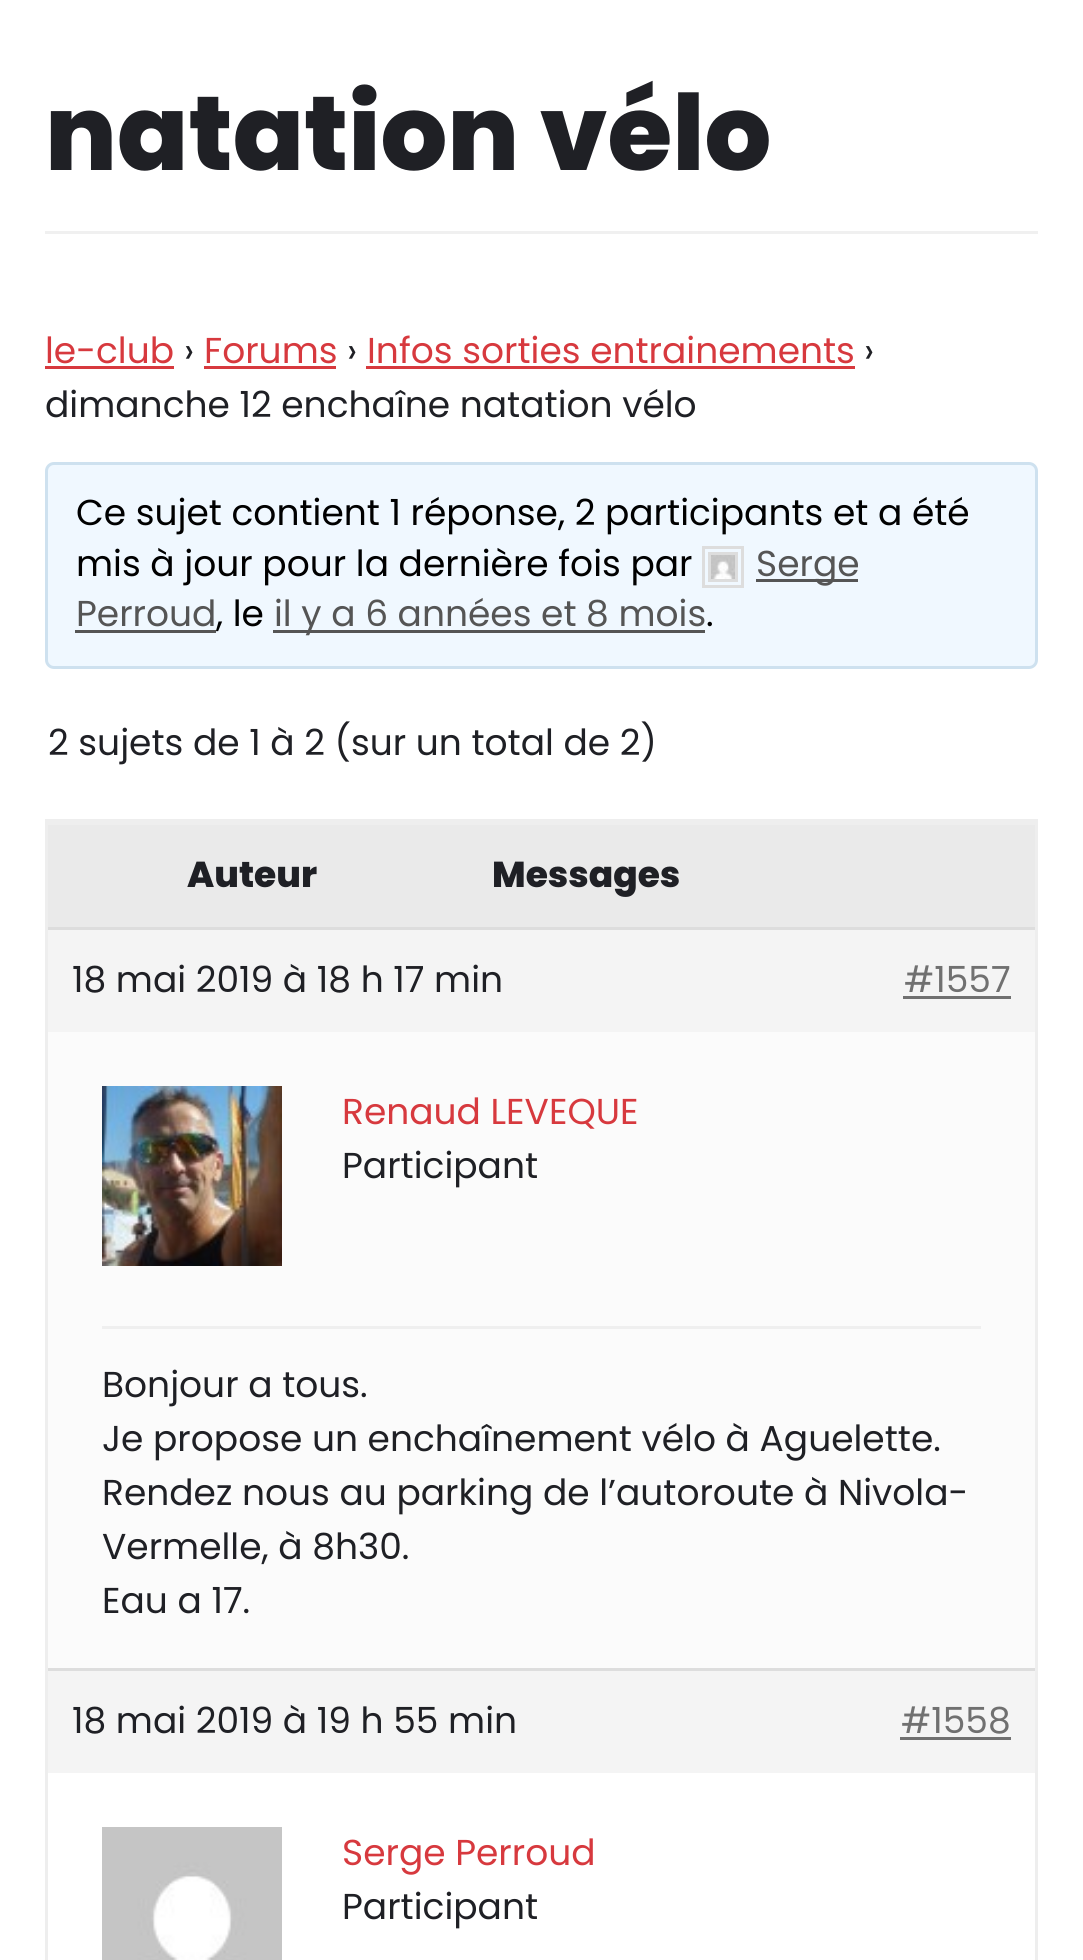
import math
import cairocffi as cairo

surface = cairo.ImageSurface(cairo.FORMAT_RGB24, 1083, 1960)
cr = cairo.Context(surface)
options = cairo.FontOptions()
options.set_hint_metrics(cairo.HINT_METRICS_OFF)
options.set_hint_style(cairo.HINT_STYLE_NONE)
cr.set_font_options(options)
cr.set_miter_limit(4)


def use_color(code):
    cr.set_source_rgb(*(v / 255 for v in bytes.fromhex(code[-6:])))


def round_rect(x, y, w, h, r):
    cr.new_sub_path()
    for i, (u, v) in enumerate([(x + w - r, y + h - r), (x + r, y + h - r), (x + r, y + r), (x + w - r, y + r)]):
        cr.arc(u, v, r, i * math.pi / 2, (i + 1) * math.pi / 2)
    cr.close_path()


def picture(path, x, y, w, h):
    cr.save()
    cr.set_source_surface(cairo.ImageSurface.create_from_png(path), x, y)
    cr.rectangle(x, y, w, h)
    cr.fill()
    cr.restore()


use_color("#ffffff")
cr.paint()
use_color("#f0f0f0")
cr.rectangle(45, 231, 993, 3)
cr.fill()
cr.select_font_face("Poppins ExtraBold")
cr.set_font_size(105)
use_color("#1f2025")
cr.move_to(45, 170)
cr.show_text("natation vélo")
cr.select_font_face("Poppins")
cr.set_font_size(36)
use_color("#d7393e")
cr.move_to(45, 363)
cr.show_text("le-club")
cr.rectangle(45, 366, 129, 3)
cr.fill()
use_color("#1f2025")
cr.move_to(184, 363)
cr.show_text("›")
use_color("#d7393e")
cr.move_to(204, 363)
cr.show_text("Forums")
cr.rectangle(204, 366, 132, 3)
cr.fill()
use_color("#1f2025")
cr.move_to(347, 363)
cr.show_text("›")
use_color("#d7393e")
cr.move_to(367, 363)
cr.show_text("Infos sorties entrainements")
cr.rectangle(366, 366, 489, 3)
cr.fill()
use_color("#1f2025")
cr.move_to(864, 363)
cr.show_text("›")
cr.move_to(45, 417)
cr.show_text("dimanche 12 enchaîne natation vélo")
use_color("#f0f8ff")
round_rect(46.5, 463.5, 990, 204, 7.5)
cr.fill_preserve()
use_color("#cee1ef")
cr.set_line_width(3)
cr.stroke()
use_color("#000000")
cr.move_to(76, 525)
cr.show_text("Ce sujet contient 1 réponse, 2 participants et a été")
cr.move_to(76, 576)
cr.show_text("mis à jour pour la dernière fois par")
cr.rectangle(703.5, 547.5, 39, 39)
use_color("#dddddd")
cr.stroke()
cr.rectangle(709.5, 553.5, 27, 27)
cr.stroke()
picture("img1.png", 711, 555, 24, 24)
use_color("#555555")
cr.rectangle(756, 579, 102, 3)
cr.fill()
cr.move_to(756, 576)
cr.show_text("Serge")
cr.move_to(76, 626)
cr.show_text("Perroud")
cr.rectangle(75, 630, 141, 3)
cr.fill()
use_color("#000000")
cr.move_to(216, 626)
cr.show_text(", le")
use_color("#555555")
cr.rectangle(273, 630, 432, 3)
cr.fill()
cr.move_to(274, 626)
cr.show_text("il y a 6 années et 8 mois")
use_color("#000000")
cr.move_to(706, 626)
cr.show_text(".")
use_color("#1f2025")
cr.move_to(48, 755)
cr.show_text("2 sujets de 1 à 2 (sur un total de 2)")
cr.rectangle(46.5, 820.5, 990, 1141)
use_color("#eeeeee")
cr.stroke()
use_color("#eaeaea")
cr.rectangle(48, 825, 987, 102)
cr.fill()
use_color("#eeeeee")
cr.rectangle(48, 822, 987, 3)
cr.fill()
cr.select_font_face("Poppins ExtraBold")
use_color("#1f2025")
cr.move_to(187, 887)
cr.show_text("Auteur")
cr.move_to(492, 887)
cr.show_text("Messages")
use_color("#f4f4f4")
cr.rectangle(48, 930, 987, 102)
cr.fill()
use_color("#dddddd")
cr.rectangle(48, 927, 987, 3)
cr.fill()
cr.select_font_face("Poppins")
use_color("#1f2025")
cr.move_to(72, 992)
cr.show_text("18 mai 2019 à 18 h 17 min")
use_color("#707070")
cr.move_to(904, 992)
cr.show_text("#1557")
cr.rectangle(903, 996, 108, 3)
cr.fill()
use_color("#fbfbfb")
cr.rectangle(48, 1032, 987, 636)
cr.fill()
use_color("#efefef")
cr.rectangle(102, 1326, 879, 3)
cr.fill()
picture("img2.png", 102, 1086, 180, 180)
use_color("#d7393e")
cr.move_to(342, 1124)
cr.show_text("Renaud LEVEQUE")
use_color("#1f2025")
cr.move_to(342, 1178)
cr.show_text("Participant")
cr.move_to(102, 1397)
cr.show_text("Bonjour a tous.")
cr.move_to(102, 1451)
cr.show_text("Je propose un enchaînement vélo à Aguelette.")
cr.move_to(102, 1505)
cr.show_text("Rendez nous au parking de l’autoroute à Nivola-")
cr.move_to(102, 1559)
cr.show_text("Vermelle, à 8h30.")
cr.move_to(102, 1613)
cr.show_text("Eau a 17.")
use_color("#f4f4f4")
cr.rectangle(48, 1671, 987, 102)
cr.fill()
use_color("#dddddd")
cr.rectangle(48, 1668, 987, 3)
cr.fill()
use_color("#1f2025")
cr.move_to(72, 1733)
cr.show_text("18 mai 2019 à 19 h 55 min")
use_color("#707070")
cr.move_to(901, 1733)
cr.show_text("#1558")
cr.rectangle(900, 1737, 111, 3)
cr.fill()
picture("img3.png", 102, 1827, 180, 133)
use_color("#d7393e")
cr.move_to(342, 1865)
cr.show_text("Serge Perroud")
use_color("#1f2025")
cr.move_to(342, 1919)
cr.show_text("Participant")
surface.write_to_png("result.png")
